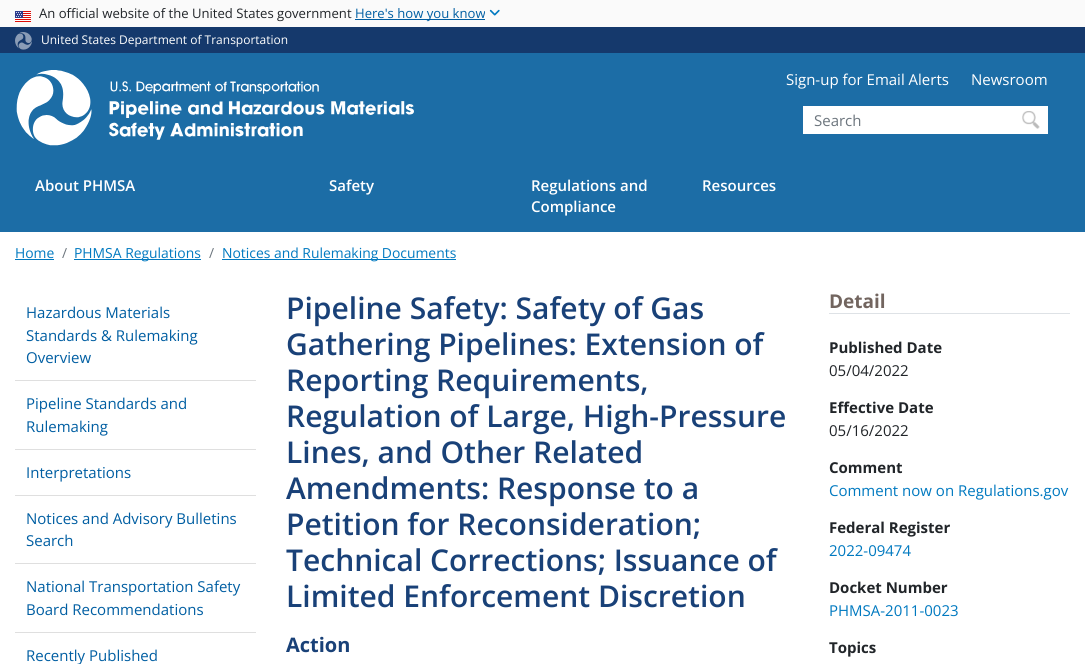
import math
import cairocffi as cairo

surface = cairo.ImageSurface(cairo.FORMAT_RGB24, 1085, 664)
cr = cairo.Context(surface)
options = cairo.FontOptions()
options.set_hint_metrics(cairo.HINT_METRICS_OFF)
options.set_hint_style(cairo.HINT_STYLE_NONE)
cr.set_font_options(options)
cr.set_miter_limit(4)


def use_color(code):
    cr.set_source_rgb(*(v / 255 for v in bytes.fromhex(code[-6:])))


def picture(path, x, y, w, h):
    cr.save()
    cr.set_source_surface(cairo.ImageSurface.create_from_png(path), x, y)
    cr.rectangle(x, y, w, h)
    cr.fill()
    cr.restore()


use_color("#ffffff")
cr.paint()
use_color("#fafafa")
cr.rectangle(0, 0, 1085, 27)
cr.fill()
picture("img1.png", 15, 11, 16, 11)
cr.select_font_face("Open Sans")
cr.set_font_size(13.1)
use_color("#212529")
cr.move_to(39, 18)
cr.show_text("An official website of the United States government")
use_color("#005ea2")
cr.rectangle(355, 19, 130, 1)
cr.fill()
cr.move_to(355, 18)
cr.show_text("Here's how you know")
picture("img2.png", 489, 9, 11, 7)
use_color("#15396c")
cr.rectangle(0, 27, 1085, 26)
cr.fill()
picture("img3.png", 15, 32, 17, 18)
cr.set_font_size(12)
use_color("#ffffff")
cr.move_to(41, 44)
cr.show_text("United States Department of Transportation")
use_color("#1c6da6")
cr.rectangle(0, 53, 1085, 179)
cr.fill()
picture("img4.png", 16, 70, 398, 76)
cr.set_font_size(15)
use_color("#ffffff")
cr.move_to(786, 85)
cr.show_text("Sign-up for Email Alerts")
cr.move_to(971, 85)
cr.show_text("Newsroom")
cr.rectangle(803, 106, 245, 28)
cr.fill()
use_color("#6c757d")
cr.move_to(814, 126)
cr.show_text("Search")
picture("img5.png", 1022, 111, 18, 18)
cr.select_font_face("Open Sans SemiBold")
use_color("#ffffff")
cr.move_to(35, 191)
cr.show_text("About PHMSA")
cr.move_to(329, 191)
cr.show_text("Safety")
cr.move_to(531, 191)
cr.show_text("Regulations and")
cr.move_to(531, 212)
cr.show_text("Compliance")
cr.move_to(702, 191)
cr.show_text("Resources")
cr.select_font_face("Open Sans")
cr.set_font_size(13.9)
use_color("#0079c0")
cr.move_to(15, 258)
cr.show_text("Home")
cr.rectangle(15, 259, 39, 1)
cr.fill()
use_color("#6c757d")
cr.move_to(62, 258)
cr.show_text("/")
use_color("#0079c0")
cr.rectangle(74, 259, 127, 1)
cr.fill()
cr.move_to(74, 258)
cr.show_text("PHMSA Regulations")
use_color("#6c757d")
cr.move_to(209, 258)
cr.show_text("/")
use_color("#0079c0")
cr.rectangle(222, 259, 234, 1)
cr.fill()
cr.move_to(222, 258)
cr.show_text("Notices and Rulemaking Documents")
use_color("#dfdfdf")
cr.rectangle(15, 380, 241, 1)
cr.fill()
cr.set_font_size(15)
use_color("#005ea2")
cr.move_to(26, 318)
cr.show_text("Hazardous Materials")
cr.move_to(26, 341)
cr.show_text("Standards & Rulemaking")
cr.move_to(26, 363)
cr.show_text("Overview")
use_color("#dfdfdf")
cr.rectangle(15, 449, 241, 1)
cr.fill()
use_color("#005ea2")
cr.move_to(26, 409)
cr.show_text("Pipeline Standards and")
cr.move_to(26, 432)
cr.show_text("Rulemaking")
use_color("#dfdfdf")
cr.rectangle(15, 495, 241, 1)
cr.fill()
use_color("#005ea2")
cr.move_to(26, 478)
cr.show_text("Interpretations")
use_color("#dfdfdf")
cr.rectangle(15, 563, 241, 1)
cr.fill()
use_color("#005ea2")
cr.move_to(26, 524)
cr.show_text("Notices and Advisory Bulletins")
cr.move_to(26, 546)
cr.show_text("Search")
use_color("#dfdfdf")
cr.rectangle(15, 632, 241, 1)
cr.fill()
use_color("#005ea2")
cr.move_to(26, 592)
cr.show_text("National Transportation Safety")
cr.move_to(26, 615)
cr.show_text("Board Recommendations")
cr.move_to(26, 661)
cr.show_text("Recently Published")
cr.select_font_face("Open Sans SemiBold")
cr.set_font_size(30)
use_color("#194178")
cr.move_to(286, 319)
cr.show_text("Pipeline Safety: Safety of Gas")
cr.move_to(286, 355)
cr.show_text("Gathering Pipelines: Extension of")
cr.move_to(286, 391)
cr.show_text("Reporting Requirements,")
cr.move_to(286, 427)
cr.show_text("Regulation of Large, High-Pressure")
cr.move_to(286, 463)
cr.show_text("Lines, and Other Related")
cr.move_to(286, 499)
cr.show_text("Amendments: Response to a")
cr.move_to(286, 535)
cr.show_text("Petition for Reconsideration;")
cr.move_to(286, 571)
cr.show_text("Technical Corrections; Issuance of")
cr.move_to(286, 607)
cr.show_text("Limited Enforcement Discretion")
cr.select_font_face("Open Sans", cairo.FONT_SLANT_NORMAL, cairo.FONT_WEIGHT_BOLD)
cr.set_font_size(20)
cr.move_to(286, 652)
cr.show_text("Action")
use_color("#dee2e6")
cr.rectangle(829, 313, 241, 1)
cr.fill()
cr.set_font_size(19)
use_color("#72655f")
cr.move_to(829, 308)
cr.show_text("Detail")
cr.set_font_size(15)
use_color("#212529")
cr.move_to(829, 353)
cr.show_text("Published Date")
cr.select_font_face("Open Sans")
cr.move_to(829, 376)
cr.show_text("05/04/2022")
cr.select_font_face("Open Sans", cairo.FONT_SLANT_NORMAL, cairo.FONT_WEIGHT_BOLD)
cr.move_to(829, 413)
cr.show_text("Effective Date")
cr.select_font_face("Open Sans")
cr.move_to(829, 436)
cr.show_text("05/16/2022")
cr.select_font_face("Open Sans", cairo.FONT_SLANT_NORMAL, cairo.FONT_WEIGHT_BOLD)
cr.move_to(829, 473)
cr.show_text("Comment")
cr.select_font_face("Open Sans")
use_color("#0079c0")
cr.move_to(829, 496)
cr.show_text("Comment now on Regulations.gov")
cr.select_font_face("Open Sans", cairo.FONT_SLANT_NORMAL, cairo.FONT_WEIGHT_BOLD)
use_color("#212529")
cr.move_to(829, 533)
cr.show_text("Federal Register")
cr.select_font_face("Open Sans")
use_color("#0079c0")
cr.move_to(829, 556)
cr.show_text("2022-09474")
cr.select_font_face("Open Sans", cairo.FONT_SLANT_NORMAL, cairo.FONT_WEIGHT_BOLD)
use_color("#212529")
cr.move_to(829, 593)
cr.show_text("Docket Number")
cr.select_font_face("Open Sans")
use_color("#0079c0")
cr.move_to(829, 616)
cr.show_text("PHMSA-2011-0023")
cr.select_font_face("Open Sans", cairo.FONT_SLANT_NORMAL, cairo.FONT_WEIGHT_BOLD)
use_color("#212529")
cr.move_to(829, 653)
cr.show_text("Topics")
surface.write_to_png("result.png")
